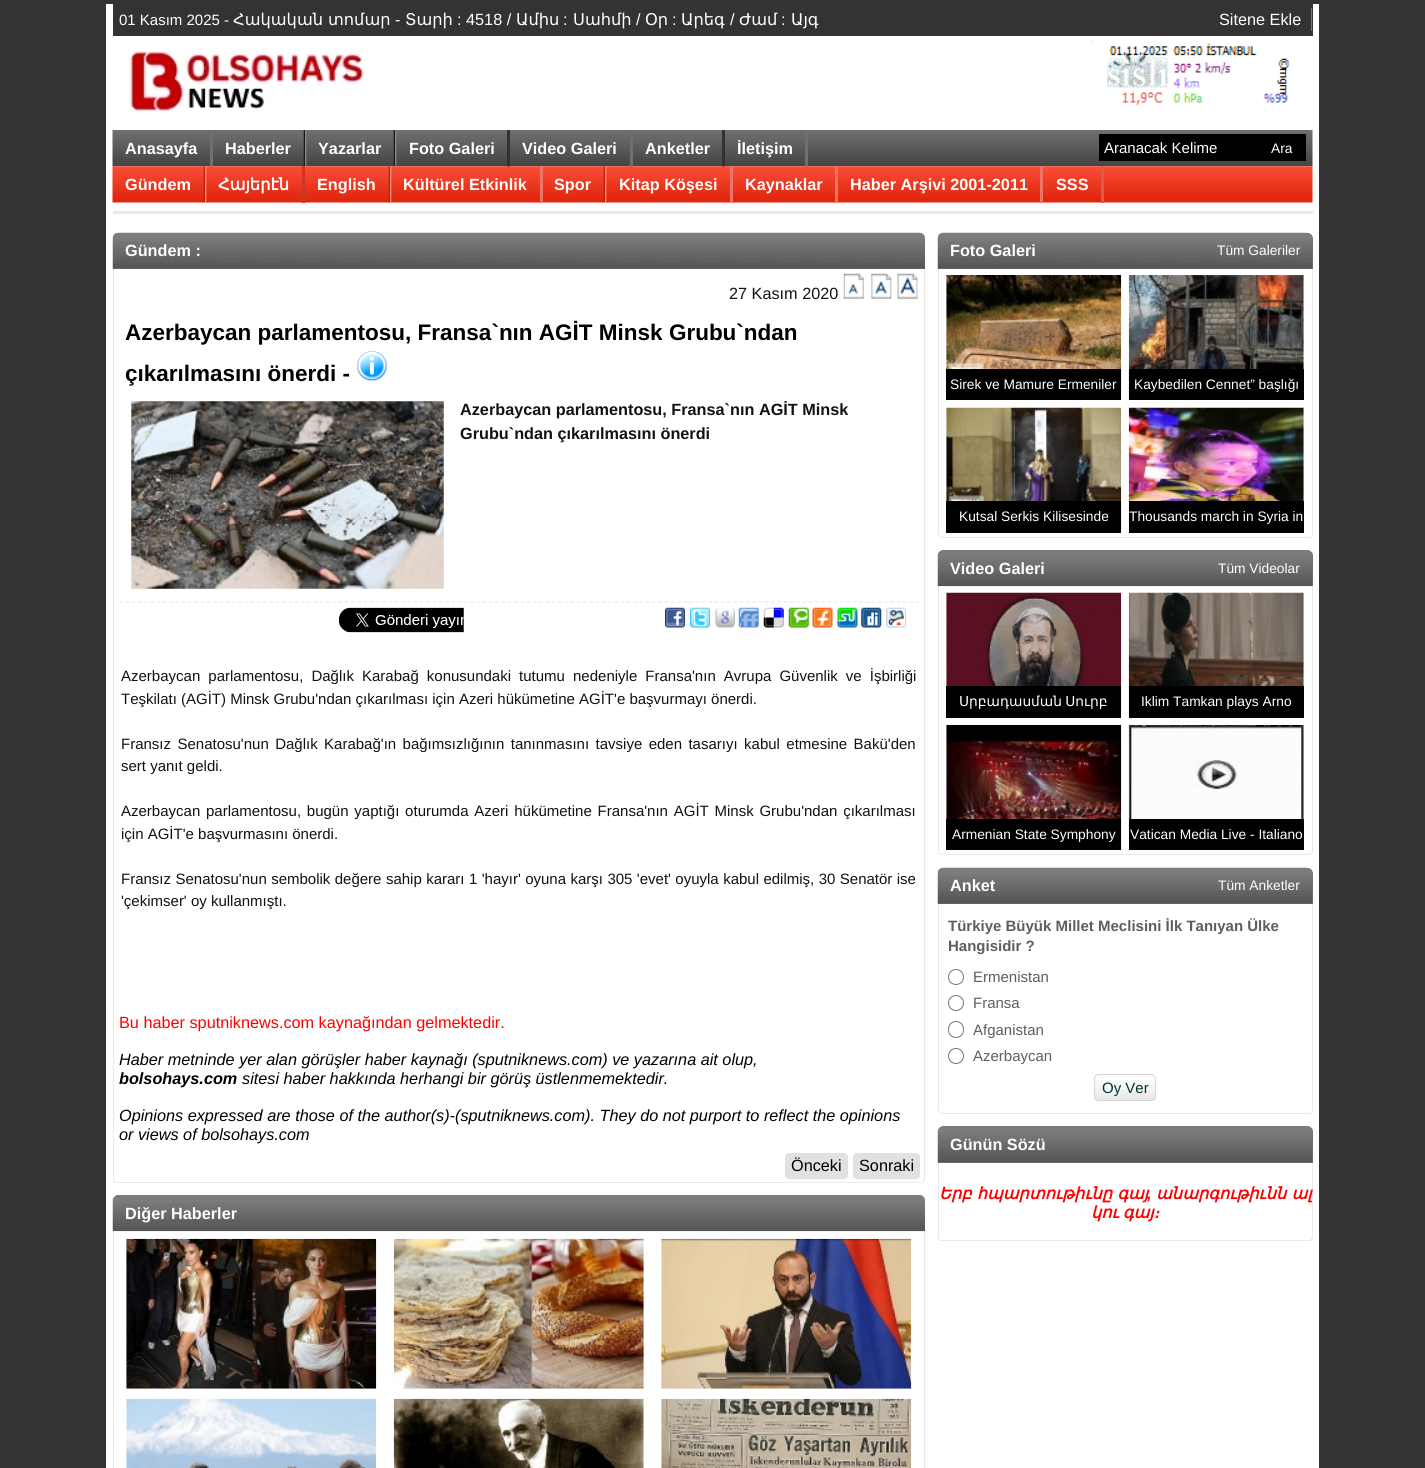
import math
import cairocffi as cairo

surface = cairo.ImageSurface(cairo.FORMAT_RGB24, 1425, 1468)
cr = cairo.Context(surface)
options = cairo.FontOptions()
options.set_hint_metrics(cairo.HINT_METRICS_OFF)
options.set_hint_style(cairo.HINT_STYLE_NONE)
cr.set_font_options(options)
cr.set_miter_limit(4)


def use_color(code):
    cr.set_source_rgb(*(v / 255 for v in bytes.fromhex(code[-6:])))


def spaced_text(x, y, s, letter, word):
    cr.move_to(x, y)
    for ch in s:
        cr.show_text(ch)
        cr.rel_move_to(letter + word * (ch == ' '), 0)


def round_rect(x, y, w, h, r):
    cr.new_sub_path()
    for i, (u, v) in enumerate([(x + w - r, y + h - r), (x + r, y + h - r), (x + r, y + r), (x + w - r, y + r)]):
        cr.arc(u, v, r, i * math.pi / 2, (i + 1) * math.pi / 2)
    cr.close_path()


def picture(path, x, y, w, h):
    cr.save()
    cr.set_source_surface(cairo.ImageSurface.create_from_png(path), x, y)
    cr.rectangle(x, y, w, h)
    cr.fill()
    cr.restore()


use_color("#333333")
cr.paint()
use_color("#ffffff")
cr.rectangle(106, 4, 1213, 1464)
cr.fill()
use_color("#333333")
cr.rectangle(113, 4, 1200, 32)
cr.fill()
cr.select_font_face("Liberation Sans")
cr.set_font_size(15)
use_color("#ffffff")
cr.move_to(119, 25)
cr.show_text("01 Kasım 2025 -")
cr.select_font_face("DejaVu Sans")
cr.set_font_size(16.25)
cr.move_to(233, 25)
cr.show_text("Հակական")
cr.move_to(328, 25)
cr.show_text("տոմար")
cr.select_font_face("Liberation Sans")
cr.move_to(395, 25)
cr.show_text("-")
cr.select_font_face("DejaVu Sans")
cr.move_to(405, 25)
cr.show_text("Տարի")
cr.select_font_face("Liberation Sans")
cr.move_to(457, 25)
cr.show_text(": 4518 /")
cr.select_font_face("DejaVu Sans")
cr.move_to(516, 25)
cr.show_text("Ամիս")
cr.select_font_face("Liberation Sans")
cr.move_to(563, 25)
cr.show_text(":")
cr.select_font_face("DejaVu Sans")
cr.move_to(573, 25)
cr.show_text("Սահմի")
cr.select_font_face("Liberation Sans")
cr.move_to(636, 25)
cr.show_text("/")
cr.select_font_face("DejaVu Sans")
cr.move_to(645, 25)
cr.show_text("Օր")
cr.select_font_face("Liberation Sans")
cr.move_to(672, 25)
cr.show_text(":")
cr.select_font_face("DejaVu Sans")
cr.move_to(681, 25)
cr.show_text("Արեգ")
cr.select_font_face("Liberation Sans")
cr.move_to(730, 25)
cr.show_text("/")
cr.select_font_face("DejaVu Sans")
cr.move_to(739, 25)
cr.show_text("Ժամ")
cr.select_font_face("Liberation Sans")
cr.move_to(781, 25)
cr.show_text(":")
cr.select_font_face("DejaVu Sans")
cr.move_to(791, 25)
cr.show_text("Այգ")
cr.select_font_face("Liberation Sans")
cr.move_to(1219, 25)
cr.show_text("Sitene Ekle")
use_color("#757575")
cr.rectangle(1311, 8, 1, 23)
cr.fill()
use_color("#eeeeee")
cr.rectangle(1091, 40, 1, 5)
cr.fill()
picture("img1.png", 129, 51, 235, 61)
picture("img2.png", 1107, 43, 184, 62)
picture("img3.png", 112, 130, 1201, 37)
use_color("#6f6f6f")
cr.rectangle(210, 130, 3, 37)
cr.fill()
cr.select_font_face("Liberation Sans", cairo.FONT_SLANT_NORMAL, cairo.FONT_WEIGHT_BOLD)
use_color("#ffffff")
cr.move_to(125, 154)
cr.show_text("Anasayfa")
picture("img4.png", 303, 130, 4, 37)
cr.move_to(225, 154)
cr.show_text("Haberler")
picture("img4.png", 393, 130, 4, 37)
cr.move_to(318, 154)
cr.show_text("Yazarlar")
use_color("#323232")
cr.rectangle(507, 130, 3, 37)
cr.fill()
use_color("#ffffff")
cr.move_to(409, 154)
cr.show_text("Foto Galeri")
use_color("#6f6f6f")
cr.rectangle(630, 130, 3, 37)
cr.fill()
use_color("#ffffff")
cr.move_to(522, 154)
cr.show_text("Video Galeri")
use_color("#323232")
cr.rectangle(722, 130, 3, 37)
cr.fill()
use_color("#ffffff")
cr.move_to(645, 154)
cr.show_text("Anketler")
use_color("#6f6f6f")
cr.rectangle(805, 130, 3, 37)
cr.fill()
use_color("#ffffff")
cr.move_to(737, 154)
cr.show_text("İletişim")
use_color("#000000")
cr.rectangle(1099, 134, 207, 27)
cr.fill()
cr.select_font_face("Liberation Sans")
cr.set_font_size(15)
use_color("#ffffff")
cr.move_to(1104, 153)
cr.show_text("Aranacak Kelime")
cr.set_font_size(13.75)
cr.move_to(1271, 153)
cr.show_text("Ara")
picture("img5.png", 112, 166, 1201, 37)
picture("img6.png", 203, 166, 4, 37)
cr.select_font_face("Liberation Sans", cairo.FONT_SLANT_NORMAL, cairo.FONT_WEIGHT_BOLD)
cr.set_font_size(16.25)
cr.move_to(125, 190)
cr.show_text("Gündem")
use_color("#c83825")
cr.rectangle(302, 166, 3, 37)
cr.fill()
cr.select_font_face("DejaVu Sans", cairo.FONT_SLANT_NORMAL, cairo.FONT_WEIGHT_BOLD)
use_color("#ffffff")
cr.move_to(218, 190)
cr.show_text("Հայերէն")
picture("img6.png", 388, 166, 4, 37)
cr.select_font_face("Liberation Sans", cairo.FONT_SLANT_NORMAL, cairo.FONT_WEIGHT_BOLD)
cr.move_to(317, 190)
cr.show_text("English")
use_color("#e87566")
cr.rectangle(540, 166, 3, 37)
cr.fill()
use_color("#ffffff")
cr.move_to(403, 190)
cr.show_text("Kültürel Etkinlik")
picture("img6.png", 603, 166, 4, 37)
cr.move_to(554, 190)
cr.show_text("Spor")
use_color("#e87566")
cr.rectangle(730, 166, 3, 37)
cr.fill()
use_color("#ffffff")
cr.move_to(619, 190)
cr.show_text("Kitap Köşesi")
use_color("#e87566")
cr.rectangle(835, 166, 3, 37)
cr.fill()
use_color("#ffffff")
cr.move_to(745, 190)
cr.show_text("Kaynaklar")
use_color("#e87566")
cr.rectangle(1040, 166, 3, 37)
cr.fill()
use_color("#ffffff")
cr.move_to(850, 190)
cr.show_text("Haber Arşivi 2001-2011")
use_color("#da5b4a")
cr.rectangle(1101, 166, 3, 37)
cr.fill()
use_color("#ffffff")
cr.move_to(1056, 190)
cr.show_text("SSS")
use_color("#e9e9e9")
cr.rectangle(113, 211, 1200, 3)
cr.fill()
cr.new_path()
cr.move_to(121, 233.5)
cr.line_to(917, 233.5)
cr.curve_to(921, 233.5, 924.5, 237, 924.5, 241)
cr.line_to(924.5, 1179)
cr.curve_to(924.5, 1181, 923, 1182.5, 921, 1182.5)
cr.line_to(117, 1182.5)
cr.curve_to(115, 1182.5, 113.5, 1181, 113.5, 1179)
cr.line_to(113.5, 241)
cr.curve_to(113.5, 237, 117, 233.5, 121, 233.5)
cr.close_path()
cr.set_line_width(1)
cr.stroke()
use_color("#747274")
cr.new_path()
cr.move_to(119, 233)
cr.line_to(919, 233)
cr.curve_to(922.5, 233, 925, 235.5, 925, 239)
cr.line_to(925, 269)
cr.line_to(113, 269)
cr.line_to(113, 239)
cr.curve_to(113, 235.5, 115.5, 233, 119, 233)
cr.close_path()
cr.fill()
picture("img7.png", 112, 232, 813, 37)
use_color("#ffffff")
cr.move_to(125, 256)
cr.show_text("Gündem :")
cr.select_font_face("Liberation Sans")
use_color("#121212")
cr.move_to(729, 299)
cr.show_text("27 Kasım 2020")
picture("img8.png", 843, 273, 21, 26)
picture("img9.png", 870, 273, 22, 26)
picture("img10.png", 897, 273, 21, 26)
cr.new_path()
cr.move_to(119, 602)
cr.line_to(919, 602)
use_color("#e9e9e9")
cr.set_line_width(1.2)
cr.set_dash([3.75, 2.52])
cr.stroke()
cr.select_font_face("Liberation Sans", cairo.FONT_SLANT_NORMAL, cairo.FONT_WEIGHT_BOLD)
cr.set_font_size(22.5)
use_color("#000000")
cr.move_to(125, 340)
cr.show_text("Azerbaycan parlamentosu, Fransa`nın AGİT Minsk Grubu`ndan")
cr.move_to(125, 381)
cr.show_text("çıkarılmasını önerdi -")
picture("img11.png", 357, 351, 30, 30)
picture("img12.png", 131, 401, 313, 188)
cr.set_font_size(16.25)
use_color("#121212")
cr.move_to(460, 415)
cr.show_text("Azerbaycan parlamentosu, Fransa`nın AGİT Minsk")
cr.move_to(460, 439)
cr.show_text("Grubu`ndan çıkarılmasını önerdi")
picture("img13.png", 339, 607, 125, 26)
picture("img14.png", 665, 607, 20, 21)
picture("img15.png", 690, 607, 20, 21)
picture("img16.png", 715, 607, 20, 21)
picture("img17.png", 738, 607, 21, 21)
picture("img18.png", 763, 607, 21, 21)
picture("img19.png", 788, 607, 21, 21)
picture("img20.png", 812, 607, 21, 21)
picture("img21.png", 837, 607, 21, 21)
picture("img22.png", 861, 607, 21, 21)
picture("img23.png", 886, 607, 21, 21)
cr.select_font_face("Liberation Sans")
cr.set_font_size(15)
spaced_text(121, 681, "Azerbaycan parlamentosu, Dağlık Karabağ konusundaki tutumu nedeniyle Fransa'nın Avrupa Güvenlik ve İşbirliği", 0, 3.9)
cr.move_to(121, 704)
cr.show_text("Teşkilatı (AGİT) Minsk Grubu'ndan çıkarılması için Azeri hükümetine AGİT'e başvurmayı önerdi.")
spaced_text(121, 749, "Fransız Senatosu'nun Dağlık Karabağ'ın bağımsızlığının tanınmasını tavsiye eden tasarıyı kabul etmesine Bakü'den", 0, 2.25)
cr.move_to(121, 771)
cr.show_text("sert yanıt geldi.")
spaced_text(121, 816, "Azerbaycan parlamentosu, bugün yaptığı oturumda Azeri hükümetine Fransa'nın AGİT Minsk Grubu'ndan çıkarılması", 0, 1.6)
cr.move_to(121, 839)
cr.show_text("için AGİT'e başvurmasını önerdi.")
spaced_text(121, 884, "Fransız Senatosu'nun sembolik değere sahip kararı 1 'hayır' oyuna karşı 305 'evet' oyuyla kabul edilmiş, 30 Senatör ise", 0, 0.25)
cr.move_to(121, 906)
cr.show_text("'çekimser' oy kullanmıştı.")
cr.set_font_size(16.25)
use_color("#ff0000")
cr.move_to(119, 1028)
cr.show_text("Bu haber sputniknews.com kaynağından gelmektedir.")
cr.select_font_face("Liberation Sans", cairo.FONT_SLANT_ITALIC)
use_color("#000000")
cr.move_to(119, 1065)
cr.show_text("Haber metninde yer alan görüşler haber kaynağı (sputniknews.com) ve yazarına ait olup,")
cr.select_font_face("Liberation Sans", cairo.FONT_SLANT_ITALIC, cairo.FONT_WEIGHT_BOLD)
cr.move_to(119, 1084)
cr.show_text("bolsohays.com")
cr.select_font_face("Liberation Sans", cairo.FONT_SLANT_ITALIC)
cr.move_to(242, 1084)
cr.show_text("sitesi haber hakkında herhangi bir görüş üstlenmemektedir.")
cr.move_to(119, 1121)
cr.show_text("Opinions expressed are those of the author(s)-(sputniknews.com). They do not purport to reflect the opinions")
cr.move_to(119, 1140)
cr.show_text("or views of bolsohays.com")
use_color("#e1e1e1")
round_rect(785, 1153, 63, 26, 4)
cr.fill()
cr.select_font_face("Liberation Sans")
use_color("#000000")
cr.move_to(791, 1171)
cr.show_text("Önceki")
use_color("#e1e1e1")
round_rect(853, 1153, 67, 26, 4)
cr.fill()
use_color("#000000")
cr.move_to(859, 1171)
cr.show_text("Sonraki")
cr.new_path()
cr.move_to(121, 1195.5)
cr.line_to(917, 1195.5)
cr.curve_to(921, 1195.5, 924.5, 1199, 924.5, 1203)
cr.line_to(924.5, 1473)
cr.curve_to(924.5, 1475, 923, 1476.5, 921, 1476.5)
cr.line_to(117, 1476.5)
cr.curve_to(115, 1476.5, 113.5, 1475, 113.5, 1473)
cr.line_to(113.5, 1203)
cr.curve_to(113.5, 1199, 117, 1195.5, 121, 1195.5)
cr.close_path()
use_color("#e9e9e9")
cr.set_line_width(1)
cr.set_dash([])
cr.stroke()
use_color("#747274")
cr.new_path()
cr.move_to(119, 1195)
cr.line_to(919, 1195)
cr.curve_to(922.5, 1195, 925, 1197.5, 925, 1201)
cr.line_to(925, 1231)
cr.line_to(113, 1231)
cr.line_to(113, 1201)
cr.curve_to(113, 1197.5, 115.5, 1195, 119, 1195)
cr.close_path()
cr.fill()
picture("img24.png", 112, 1195, 813, 37)
cr.select_font_face("Liberation Sans", cairo.FONT_SLANT_NORMAL, cairo.FONT_WEIGHT_BOLD)
use_color("#ffffff")
cr.move_to(125, 1219)
cr.show_text("Diğer Haberler")
picture("img25.png", 126, 1238, 251, 151)
picture("img26.png", 393, 1238, 251, 151)
picture("img27.png", 661, 1238, 251, 151)
picture("img28.png", 126, 1398, 251, 70)
picture("img29.png", 393, 1398, 251, 70)
picture("img30.png", 661, 1398, 251, 70)
cr.new_path()
cr.move_to(946, 233.5)
cr.line_to(1305, 233.5)
cr.curve_to(1309, 233.5, 1312.5, 237, 1312.5, 241)
cr.line_to(1312.5, 534)
cr.curve_to(1312.5, 536, 1311, 537.5, 1309, 537.5)
cr.line_to(942, 537.5)
cr.curve_to(940, 537.5, 938.5, 536, 938.5, 534)
cr.line_to(938.5, 241)
cr.curve_to(938.5, 237, 942, 233.5, 946, 233.5)
cr.close_path()
use_color("#e9e9e9")
cr.stroke()
use_color("#747274")
cr.new_path()
cr.move_to(944, 233)
cr.line_to(1307, 233)
cr.curve_to(1310.5, 233, 1313, 235.5, 1313, 239)
cr.line_to(1313, 269)
cr.line_to(938, 269)
cr.line_to(938, 239)
cr.curve_to(938, 235.5, 940.5, 233, 944, 233)
cr.close_path()
cr.fill()
picture("img31.png", 937, 232, 376, 37)
use_color("#ffffff")
cr.move_to(950, 256)
cr.show_text("Foto Galeri")
cr.select_font_face("Liberation Sans")
cr.set_font_size(13.75)
cr.move_to(1217, 255)
cr.show_text("Tüm Galeriler")
picture("img32.png", 946, 275, 176, 125)
use_color("#000000")
cr.rectangle(946, 369, 175, 31)
cr.fill()
use_color("#ffffff")
cr.move_to(950, 389)
cr.show_text("Sirek ve Mamure Ermeniler")
picture("img33.png", 1128, 275, 176, 125)
use_color("#000000")
cr.rectangle(1129, 369, 175, 31)
cr.fill()
use_color("#ffffff")
cr.move_to(1134, 389)
cr.show_text("Kaybedilen Cennet” başlığı")
picture("img34.png", 946, 407, 176, 125)
use_color("#000000")
cr.rectangle(946, 501, 175, 32)
cr.fill()
use_color("#ffffff")
cr.move_to(959, 521)
cr.show_text("Kutsal Serkis Kilisesinde")
picture("img35.png", 1128, 407, 176, 125)
use_color("#000000")
cr.rectangle(1129, 501, 175, 32)
cr.fill()
use_color("#ffffff")
cr.move_to(1129, 521)
cr.show_text("Thousands march in Syria in")
cr.new_path()
cr.move_to(946, 550.5)
cr.line_to(1305, 550.5)
cr.curve_to(1309, 550.5, 1312.5, 554, 1312.5, 558)
cr.line_to(1312.5, 851)
cr.curve_to(1312.5, 853, 1311, 854.5, 1309, 854.5)
cr.line_to(942, 854.5)
cr.curve_to(940, 854.5, 938.5, 853, 938.5, 851)
cr.line_to(938.5, 558)
cr.curve_to(938.5, 554, 942, 550.5, 946, 550.5)
cr.close_path()
use_color("#e9e9e9")
cr.stroke()
use_color("#747274")
cr.new_path()
cr.move_to(944, 550)
cr.line_to(1307, 550)
cr.curve_to(1310.5, 550, 1313, 552.5, 1313, 556)
cr.line_to(1313, 586)
cr.line_to(938, 586)
cr.line_to(938, 556)
cr.curve_to(938, 552.5, 940.5, 550, 944, 550)
cr.close_path()
cr.fill()
picture("img36.png", 937, 550, 376, 37)
cr.select_font_face("Liberation Sans", cairo.FONT_SLANT_NORMAL, cairo.FONT_WEIGHT_BOLD)
cr.set_font_size(16.25)
use_color("#ffffff")
cr.move_to(950, 574)
cr.show_text("Video Galeri")
cr.select_font_face("Liberation Sans")
cr.set_font_size(13.75)
cr.move_to(1218, 573)
cr.show_text("Tüm Videolar")
picture("img37.png", 946, 592, 176, 125)
use_color("#000000")
cr.rectangle(946, 686, 175, 32)
cr.fill()
cr.select_font_face("DejaVu Sans")
use_color("#ffffff")
spaced_text(959, 706, "Սրբադասման Սուրբ", 0, -1)
picture("img38.png", 1128, 592, 176, 125)
use_color("#000000")
cr.rectangle(1129, 686, 175, 32)
cr.fill()
cr.select_font_face("Liberation Sans")
use_color("#ffffff")
cr.move_to(1141, 706)
cr.show_text("Iklim Tamkan plays Arno")
picture("img39.png", 946, 725, 176, 125)
use_color("#000000")
cr.rectangle(946, 819, 175, 31)
cr.fill()
use_color("#ffffff")
cr.move_to(952, 839)
cr.show_text("Armenian State Symphony")
picture("img40.png", 1128, 725, 176, 125)
use_color("#000000")
cr.rectangle(1129, 819, 175, 31)
cr.fill()
use_color("#ffffff")
cr.move_to(1130, 839)
cr.show_text("Vatican Media Live - Italiano")
cr.new_path()
cr.move_to(946, 868.5)
cr.line_to(1305, 868.5)
cr.curve_to(1309, 868.5, 1312.5, 872, 1312.5, 876)
cr.line_to(1312.5, 1110)
cr.curve_to(1312.5, 1112, 1311, 1113.5, 1309, 1113.5)
cr.line_to(942, 1113.5)
cr.curve_to(940, 1113.5, 938.5, 1112, 938.5, 1110)
cr.line_to(938.5, 876)
cr.curve_to(938.5, 872, 942, 868.5, 946, 868.5)
cr.close_path()
use_color("#e9e9e9")
cr.stroke()
use_color("#747274")
cr.new_path()
cr.move_to(944, 868)
cr.line_to(1307, 868)
cr.curve_to(1310.5, 868, 1313, 870.5, 1313, 874)
cr.line_to(1313, 904)
cr.line_to(938, 904)
cr.line_to(938, 874)
cr.curve_to(938, 870.5, 940.5, 868, 944, 868)
cr.close_path()
cr.fill()
picture("img31.png", 937, 867, 376, 37)
cr.select_font_face("Liberation Sans", cairo.FONT_SLANT_NORMAL, cairo.FONT_WEIGHT_BOLD)
cr.set_font_size(16.25)
use_color("#ffffff")
cr.move_to(950, 891)
cr.show_text("Anket")
cr.select_font_face("Liberation Sans")
cr.set_font_size(13.75)
cr.move_to(1218, 890)
cr.show_text("Tüm Anketler")
cr.select_font_face("Liberation Sans", cairo.FONT_SLANT_NORMAL, cairo.FONT_WEIGHT_BOLD)
cr.set_font_size(15)
use_color("#5e5e5e")
cr.move_to(948, 931)
cr.show_text("Türkiye Büyük Millet Meclisini İlk Tanıyan Ülke")
cr.move_to(948, 951)
cr.show_text("Hangisidir ?")
cr.new_path()
cr.arc(956, 977, 7.5, 0, 2 * math.pi)
use_color("#767676")
cr.stroke()
cr.select_font_face("Liberation Sans")
use_color("#5e5e5e")
cr.move_to(973, 982)
cr.show_text("Ermenistan")
cr.new_path()
cr.arc(956, 1003, 7.5, 0, 2 * math.pi)
use_color("#767676")
cr.stroke()
use_color("#5e5e5e")
cr.move_to(973, 1008)
cr.show_text("Fransa")
round_rect(948.5, 1021.5, 15, 16, 7.5)
use_color("#767676")
cr.stroke()
use_color("#5e5e5e")
cr.move_to(973, 1035)
cr.show_text("Afganistan")
cr.new_path()
cr.arc(956, 1056, 7.5, 0, 2 * math.pi)
use_color("#767676")
cr.stroke()
use_color("#5e5e5e")
cr.move_to(973, 1061)
cr.show_text("Azerbaycan")
picture("img41.png", 1094, 1080, 62, 21)
round_rect(1094.5, 1074.5, 61, 26, 4.5)
use_color("#d4d4d4")
cr.stroke()
use_color("#003333")
cr.move_to(1102, 1093)
cr.show_text("Oy Ver")
cr.new_path()
cr.move_to(946, 1126.5)
cr.line_to(1305, 1126.5)
cr.curve_to(1309, 1126.5, 1312.5, 1130, 1312.5, 1134)
cr.line_to(1312.5, 1237)
cr.curve_to(1312.5, 1239, 1311, 1240.5, 1309, 1240.5)
cr.line_to(942, 1240.5)
cr.curve_to(940, 1240.5, 938.5, 1239, 938.5, 1237)
cr.line_to(938.5, 1134)
cr.curve_to(938.5, 1130, 942, 1126.5, 946, 1126.5)
cr.close_path()
use_color("#e9e9e9")
cr.stroke()
use_color("#747274")
cr.new_path()
cr.move_to(944, 1126)
cr.line_to(1307, 1126)
cr.curve_to(1310.5, 1126, 1313, 1128.5, 1313, 1132)
cr.line_to(1313, 1163)
cr.line_to(938, 1163)
cr.line_to(938, 1132)
cr.curve_to(938, 1128.5, 940.5, 1126, 944, 1126)
cr.close_path()
cr.fill()
picture("img42.png", 937, 1126, 376, 37)
cr.select_font_face("Liberation Sans", cairo.FONT_SLANT_NORMAL, cairo.FONT_WEIGHT_BOLD)
cr.set_font_size(16.25)
use_color("#ffffff")
cr.move_to(950, 1150)
cr.show_text("Günün Sözü")
cr.select_font_face("DejaVu Sans", cairo.FONT_SLANT_ITALIC, cairo.FONT_WEIGHT_BOLD)
use_color("#ff0000")
cr.move_to(939, 1199)
cr.show_text("Երբ հպարտութիւնը գայ")
cr.select_font_face("Liberation Sans", cairo.FONT_SLANT_ITALIC, cairo.FONT_WEIGHT_BOLD)
cr.move_to(1147, 1199)
cr.show_text(",")
cr.select_font_face("DejaVu Sans", cairo.FONT_SLANT_ITALIC, cairo.FONT_WEIGHT_BOLD)
cr.move_to(1156, 1199)
cr.show_text("անարգութիւնն ալ")
spaced_text(1091, 1218, "կու գայ։", 0, -1)
surface.write_to_png("result.png")
